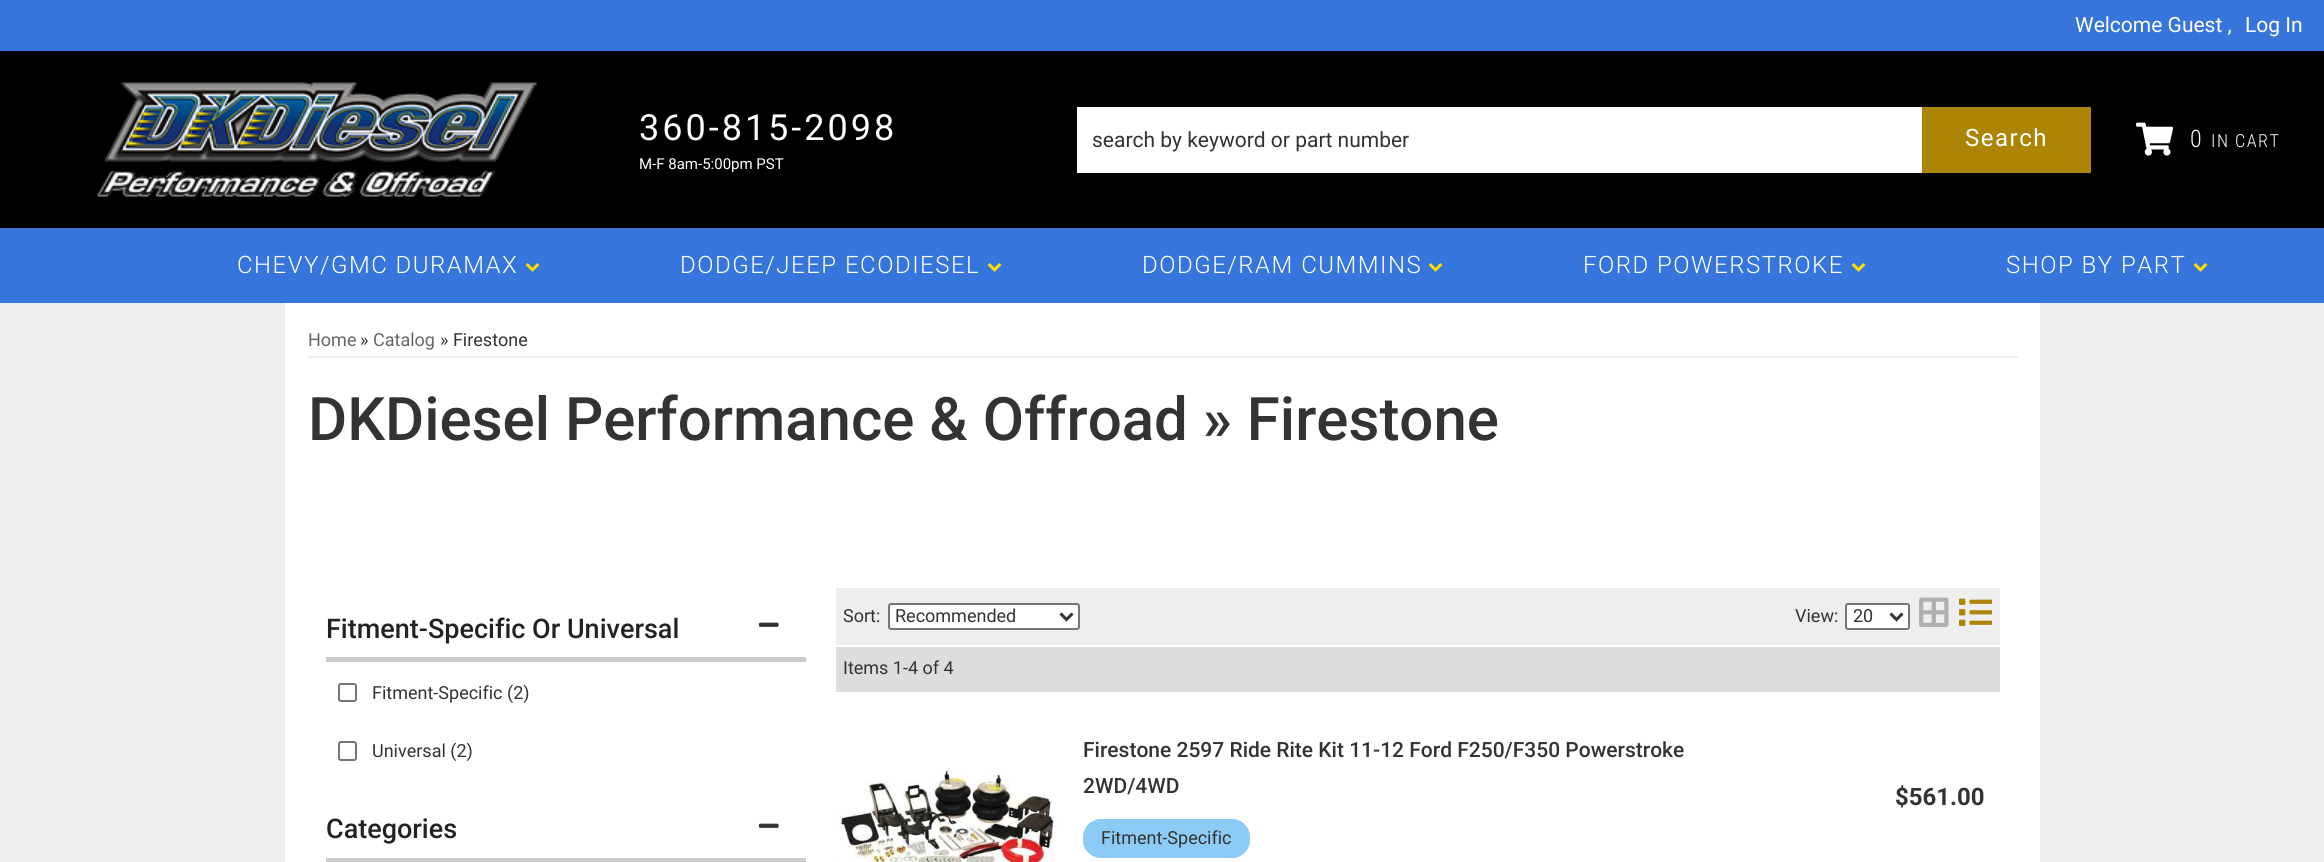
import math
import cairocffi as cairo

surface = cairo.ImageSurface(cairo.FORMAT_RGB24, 2324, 862)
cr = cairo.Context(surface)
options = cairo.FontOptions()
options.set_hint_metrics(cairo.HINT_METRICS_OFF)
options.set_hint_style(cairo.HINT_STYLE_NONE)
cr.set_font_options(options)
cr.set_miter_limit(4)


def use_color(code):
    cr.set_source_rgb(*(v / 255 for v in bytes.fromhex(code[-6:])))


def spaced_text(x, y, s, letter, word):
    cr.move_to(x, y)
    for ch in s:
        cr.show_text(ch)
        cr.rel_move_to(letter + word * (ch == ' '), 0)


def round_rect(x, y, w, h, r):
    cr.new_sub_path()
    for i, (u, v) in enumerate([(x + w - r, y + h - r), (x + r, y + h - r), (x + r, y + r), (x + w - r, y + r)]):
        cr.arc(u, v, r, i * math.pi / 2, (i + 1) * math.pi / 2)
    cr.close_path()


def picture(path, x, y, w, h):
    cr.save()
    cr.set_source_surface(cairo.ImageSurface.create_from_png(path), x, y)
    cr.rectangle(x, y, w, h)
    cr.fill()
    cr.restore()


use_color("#eeeeee")
cr.paint()
use_color("#000000")
cr.rectangle(0, 51, 2324, 177)
cr.fill()
use_color("#3675db")
cr.rectangle(0, 0, 2324, 51)
cr.fill()
cr.select_font_face("Roboto")
cr.set_font_size(21)
use_color("#ffffff")
cr.move_to(2075, 32)
cr.show_text("Welcome Guest ,")
cr.move_to(2245, 32)
cr.show_text("Log In")
picture("img1.png", 97, 82, 441, 115)
cr.set_font_size(36)
spaced_text(639, 140, "360-815-2098", 3, 0)
cr.set_font_size(15)
cr.move_to(639, 169)
cr.show_text("M-F 8am-5:00pm PST")
use_color("#ac8406")
cr.rectangle(1922, 107, 169, 66)
cr.fill()
cr.set_source_rgba(0, 0, 0, 0.04)
cr.new_path()
cr.move_to(1076, 107)
cr.line_to(1076, 176)
cr.line_to(1923, 176)
cr.line_to(1923, 107)
cr.line_to(1922, 107)
cr.line_to(1922, 172)
cr.line_to(1077, 172)
cr.line_to(1077, 107)
cr.close_path()
cr.fill()
use_color("#ffffff")
cr.rectangle(1077, 107, 845, 66)
cr.fill()
cr.set_font_size(21)
use_color("#333333")
cr.move_to(1092, 147)
cr.show_text("search by keyword or part number")
cr.set_font_size(24)
use_color("#ffffff")
spaced_text(1965, 146, "Search", 1.5, 0)
picture("img2.png", 2136, 122, 38, 34)
cr.select_font_face("Roboto Condensed Light")
spaced_text(2190, 147, "0", 1.5, 0)
cr.set_font_size(18)
spaced_text(2211, 147, "IN CART", 1.5, 0)
use_color("#3675db")
cr.rectangle(0, 228, 2324, 75)
cr.fill()
cr.select_font_face("Roboto Light")
cr.set_font_size(24)
use_color("#ffffff")
spaced_text(237, 273, "CHEVY/GMC DURAMAX", 1.5, 0)
picture("img3.png", 525, 263, 15, 9)
spaced_text(680, 273, "DODGE/JEEP ECODIESEL", 1.5, 0)
picture("img3.png", 987, 263, 15, 9)
spaced_text(1142, 273, "DODGE/RAM CUMMINS", 1.5, 0)
picture("img3.png", 1428, 263, 15, 9)
spaced_text(1583, 273, "FORD POWERSTROKE", 1.5, 0)
picture("img3.png", 1851, 263, 15, 9)
spaced_text(2006, 273, "SHOP BY PART", 1.5, 0)
picture("img3.png", 2193, 263, 15, 9)
cr.rectangle(285, 303, 1755, 559)
cr.fill()
use_color("#eeeeee")
cr.rectangle(308, 356, 1710, 2)
cr.fill()
cr.select_font_face("Roboto")
cr.set_font_size(18)
use_color("#666666")
cr.move_to(308, 346)
cr.show_text("Home")
use_color("#333333")
cr.move_to(360, 346)
cr.show_text("»")
use_color("#666666")
cr.move_to(373, 346)
cr.show_text("Catalog")
use_color("#333333")
cr.move_to(440, 346)
cr.show_text("» Firestone")
cr.select_font_face("Roboto Medium")
cr.set_font_size(60)
cr.move_to(308, 440)
cr.show_text("DKDiesel Performance & Offroad » Firestone")
use_color("#cccccc")
cr.rectangle(326, 657, 480, 5)
cr.fill()
cr.set_font_size(27)
use_color("#222222")
cr.move_to(326, 638)
cr.show_text("Fitment-Specific Or Universal")
picture("img4.png", 758, 622, 21, 5)
round_rect(339, 684, 17, 17, 2)
use_color("#767676")
cr.stroke()
cr.select_font_face("Roboto")
cr.set_font_size(18)
use_color("#333333")
cr.move_to(372, 699)
cr.show_text("Fitment-Specific (2)")
round_rect(339, 742, 17, 18, 2)
use_color("#767676")
cr.stroke()
use_color("#333333")
cr.move_to(372, 757)
cr.show_text("Universal (2)")
use_color("#cccccc")
cr.rectangle(326, 858, 480, 4)
cr.fill()
cr.select_font_face("Roboto Medium")
cr.set_font_size(27)
use_color("#222222")
cr.move_to(326, 838)
cr.show_text("Categories")
picture("img4.png", 758, 823, 21, 5)
use_color("#eeeeee")
cr.rectangle(836, 588, 1164, 57)
cr.fill()
cr.select_font_face("Roboto")
cr.set_font_size(18)
use_color("#333333")
cr.move_to(843, 622)
cr.show_text("Sort:")
use_color("#ffffff")
round_rect(889, 604, 190, 25, 2)
cr.fill_preserve()
use_color("#767676")
cr.stroke()
cr.new_path()
cr.move_to(1060.5, 613.5)
cr.line_to(1066.5, 619.5)
cr.line_to(1072.5, 613.5)
use_color("#333333")
cr.set_line_width(3)
cr.stroke()
cr.move_to(895, 622)
cr.show_text("Recommended")
cr.move_to(1795, 622)
cr.show_text("View:")
use_color("#ffffff")
round_rect(1846, 604, 63, 25, 2)
cr.fill_preserve()
use_color("#767676")
cr.set_line_width(2)
cr.stroke()
cr.new_path()
cr.move_to(1890.5, 613.5)
cr.line_to(1896.5, 619.5)
cr.line_to(1902.5, 613.5)
use_color("#333333")
cr.set_line_width(3)
cr.stroke()
cr.move_to(1853, 622)
cr.show_text("20")
picture("img5.png", 1919, 597, 30, 30)
picture("img6.png", 1959, 598, 33, 28)
use_color("#dddddd")
cr.rectangle(836, 647, 1164, 45)
cr.fill()
use_color("#333333")
cr.move_to(843, 674)
cr.show_text("Items 1-4 of 4")
picture("img7.png", 836, 769, 221, 93)
cr.select_font_face("Roboto Medium")
cr.set_font_size(21)
cr.move_to(1083, 757)
cr.show_text("Firestone 2597 Ride Rite Kit 11-12 Ford F250/F350 Powerstroke")
cr.move_to(1083, 793)
cr.show_text("2WD/4WD")
use_color("#8bcbf5")
round_rect(1083, 819, 167, 39, 18)
cr.fill()
cr.select_font_face("Roboto")
cr.set_font_size(18)
use_color("#333333")
cr.move_to(1101, 844)
cr.show_text("Fitment-Specific")
cr.select_font_face("Roboto", cairo.FONT_SLANT_NORMAL, cairo.FONT_WEIGHT_BOLD)
cr.set_font_size(24)
cr.move_to(1895, 805)
cr.show_text("$561.00")
surface.write_to_png("result.png")
